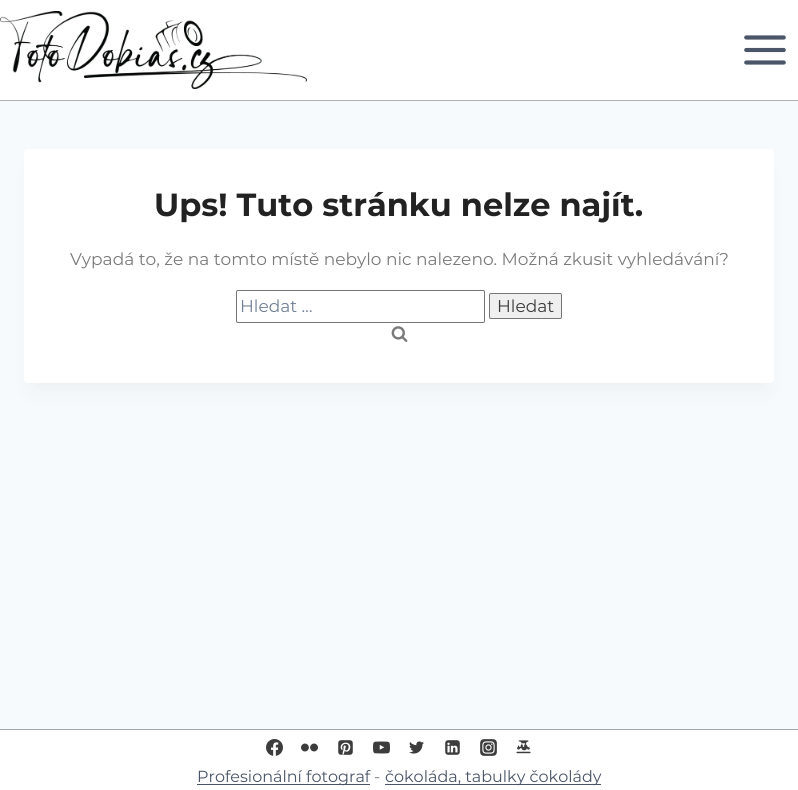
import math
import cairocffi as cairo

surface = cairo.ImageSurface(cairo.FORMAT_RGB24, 798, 790)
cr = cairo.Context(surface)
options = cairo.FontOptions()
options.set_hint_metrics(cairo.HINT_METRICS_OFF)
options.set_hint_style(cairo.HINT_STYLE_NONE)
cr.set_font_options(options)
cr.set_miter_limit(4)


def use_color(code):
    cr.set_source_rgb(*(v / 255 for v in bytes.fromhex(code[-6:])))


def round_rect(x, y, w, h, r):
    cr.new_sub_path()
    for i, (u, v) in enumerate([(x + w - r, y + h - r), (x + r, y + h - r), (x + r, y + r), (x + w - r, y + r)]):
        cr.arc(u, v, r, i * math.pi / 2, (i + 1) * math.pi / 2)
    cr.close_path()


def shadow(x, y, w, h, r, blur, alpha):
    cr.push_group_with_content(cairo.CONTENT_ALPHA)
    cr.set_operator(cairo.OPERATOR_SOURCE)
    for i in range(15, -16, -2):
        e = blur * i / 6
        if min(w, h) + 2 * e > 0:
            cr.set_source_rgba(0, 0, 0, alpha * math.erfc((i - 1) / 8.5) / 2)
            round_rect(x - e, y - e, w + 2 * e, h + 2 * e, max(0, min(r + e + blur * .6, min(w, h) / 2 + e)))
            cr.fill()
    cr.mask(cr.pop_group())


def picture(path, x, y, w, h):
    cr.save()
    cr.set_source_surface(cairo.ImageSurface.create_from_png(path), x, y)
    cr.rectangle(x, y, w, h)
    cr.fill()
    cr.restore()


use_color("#f7fafc")
cr.paint()
use_color("#ffffff")
cr.rectangle(0, 0, 798, 100)
cr.fill()
use_color("#afafaf")
cr.rectangle(0, 100, 798, 1)
cr.fill()
picture("img1.png", 0, 11, 307, 78)
picture("img2.png", 744, 35, 42, 30)
use_color("#000000")
shadow(34, 174, 730, 214, 0, 12.5, 0.05)
use_color("#ffffff")
round_rect(24, 149, 750, 234, 4)
cr.fill()
cr.select_font_face("Montserrat", cairo.FONT_SLANT_NORMAL, cairo.FONT_WEIGHT_BOLD)
cr.set_font_size(32)
use_color("#222222")
cr.move_to(154, 216)
cr.show_text("Ups! Tuto stránku nelze najít.")
cr.select_font_face("Montserrat")
cr.set_font_size(17)
use_color("#7a7a7a")
cr.move_to(70, 265)
cr.show_text("Vypadá to, že na tomto místě nebylo nic nalezeno. Možná zkusit vyhledávání?")
round_rect(236.5, 290.5, 248, 32, 1.5)
use_color("#767676")
cr.set_line_width(1)
cr.stroke()
use_color("#718096")
cr.move_to(240, 312)
cr.show_text("Hledat …")
use_color("#efefef")
round_rect(489.5, 293.5, 72, 25, 1.5)
cr.fill_preserve()
use_color("#767676")
cr.stroke()
use_color("#3c3c3c")
cr.move_to(497, 312)
cr.show_text("Hledat")
picture("img3.png", 391, 326, 17, 16)
use_color("#ffffff")
cr.rectangle(0, 730, 798, 60)
cr.fill()
use_color("#a1a7b0")
cr.rectangle(0, 729, 798, 1)
cr.fill()
picture("img4.png", 266, 739, 17, 17)
picture("img5.png", 301, 743, 17, 9)
picture("img6.png", 338, 740, 15, 15)
picture("img7.png", 373, 741, 17, 13)
picture("img8.png", 409, 741, 15, 13)
picture("img9.png", 445, 740, 15, 15)
picture("img10.png", 480, 739, 17, 17)
picture("img11.png", 516, 740, 15, 14)
use_color("#4a5568")
cr.rectangle(197, 784, 173, 1)
cr.fill()
cr.set_font_size(16)
cr.move_to(197, 782)
cr.show_text("Profesionální fotograf")
use_color("#7a7a7a")
cr.move_to(374, 782)
cr.show_text("-")
use_color("#4a5568")
cr.rectangle(385, 784, 216, 1)
cr.fill()
cr.move_to(385, 782)
cr.show_text("čokoláda, tabulky čokolády")
surface.write_to_png("result.png")
